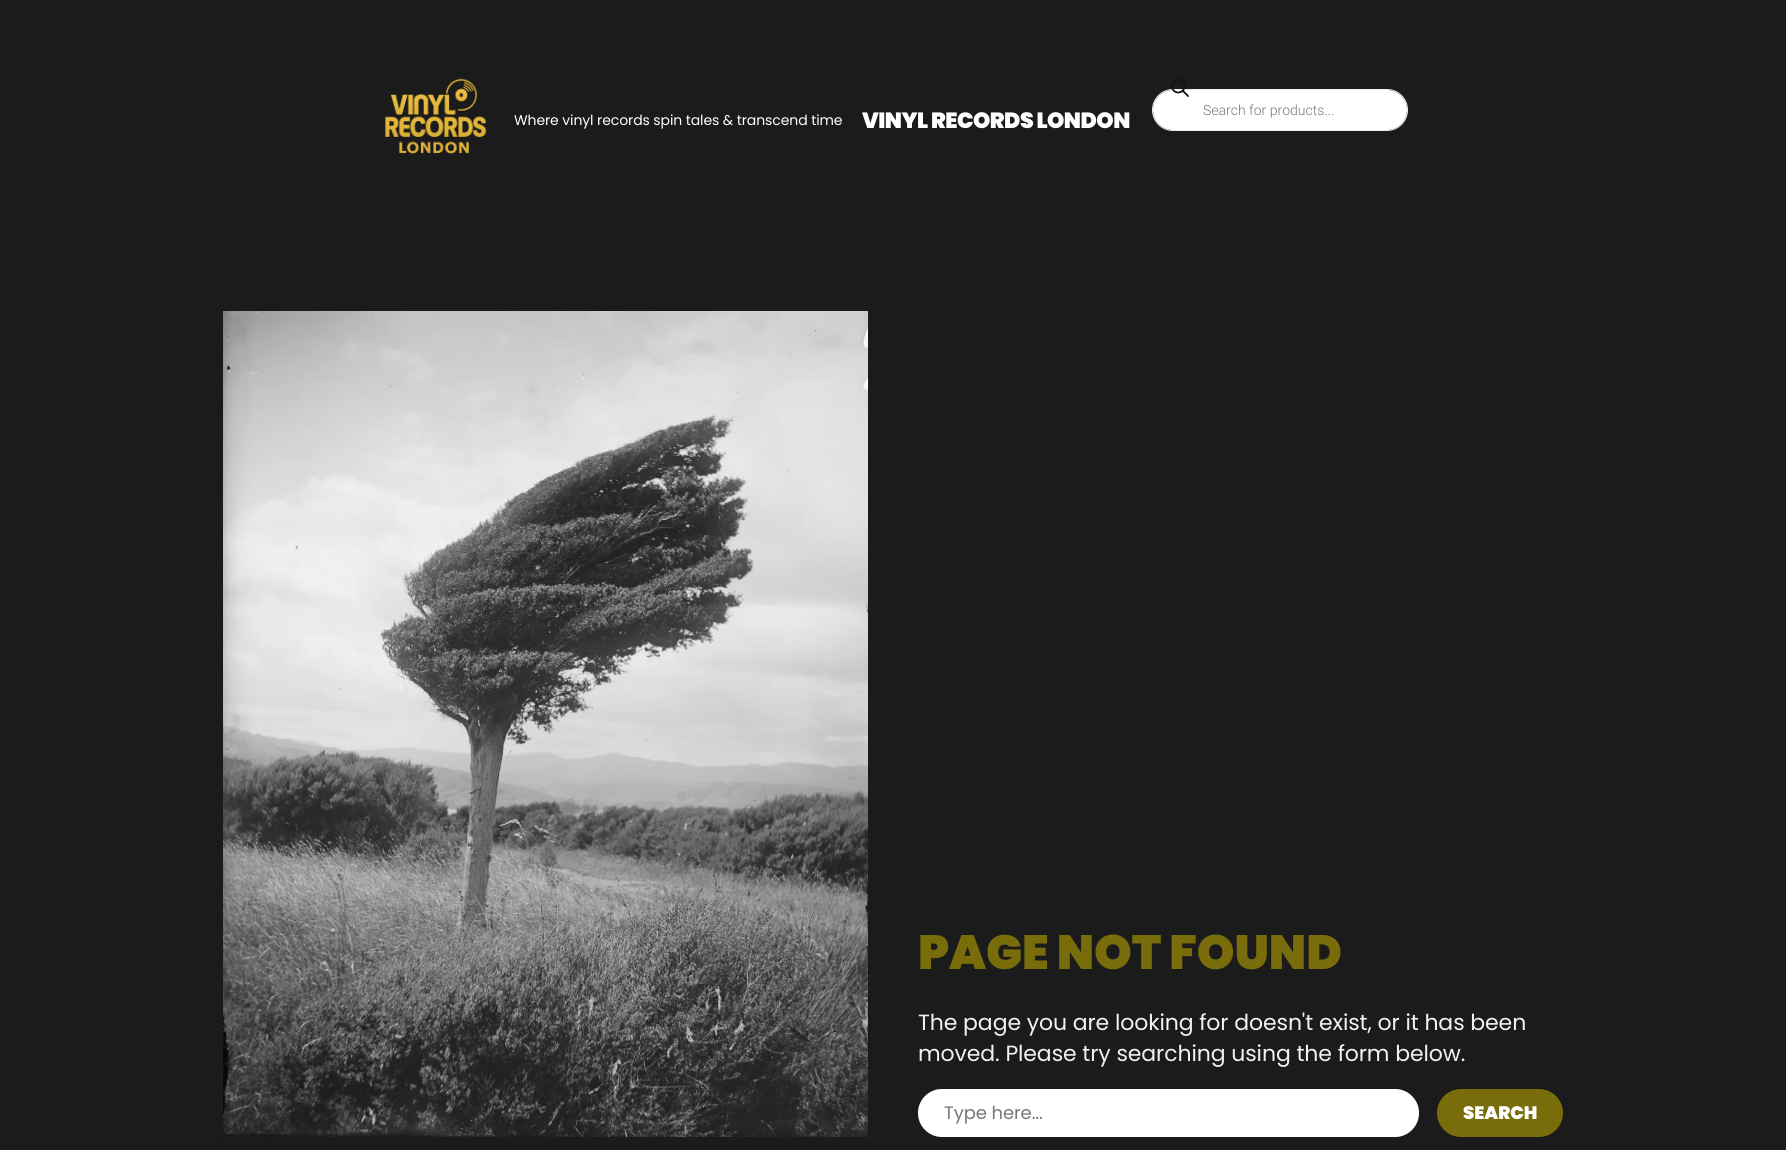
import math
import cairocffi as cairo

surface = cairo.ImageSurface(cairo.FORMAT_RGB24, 1786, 1150)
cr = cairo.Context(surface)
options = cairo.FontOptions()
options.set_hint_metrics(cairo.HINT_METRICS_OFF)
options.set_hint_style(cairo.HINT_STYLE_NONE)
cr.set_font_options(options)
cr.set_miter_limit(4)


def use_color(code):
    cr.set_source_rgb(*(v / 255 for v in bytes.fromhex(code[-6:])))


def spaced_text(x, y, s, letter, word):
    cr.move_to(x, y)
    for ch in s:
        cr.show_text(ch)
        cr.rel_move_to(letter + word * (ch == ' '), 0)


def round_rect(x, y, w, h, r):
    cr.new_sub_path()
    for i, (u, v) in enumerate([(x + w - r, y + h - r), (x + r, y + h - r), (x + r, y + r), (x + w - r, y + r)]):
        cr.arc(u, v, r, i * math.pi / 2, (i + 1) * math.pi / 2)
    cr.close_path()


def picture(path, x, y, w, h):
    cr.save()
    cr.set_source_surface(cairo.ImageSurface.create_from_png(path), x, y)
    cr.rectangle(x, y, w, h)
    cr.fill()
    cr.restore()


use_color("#1b1b1b")
cr.paint()
picture("img1.png", 385, 78, 102, 76)
cr.select_font_face("Poppins")
cr.set_font_size(14)
use_color("#ffffff")
spaced_text(514, 125, "Where vinyl records spin tales & transcend time", -0.1, 0)
cr.select_font_face("Poppins Black")
cr.set_font_size(22)
spaced_text(862, 128, "VINYL RECORDS LONDON", -0.5, 0)
round_rect(1152.5, 89.5, 255, 41, 20.5)
use_color("#eeeeee")
cr.set_line_width(1)
cr.stroke()
use_color("#ffffff")
round_rect(1153, 90, 254, 40, 20)
cr.fill()
picture("img2.png", 1171, 79, 18, 18)
cr.select_font_face("Roboto Light")
cr.set_font_size(14)
use_color("#777777")
cr.move_to(1203, 115)
cr.show_text("Search for products...")
picture("img3.png", 223, 311, 645, 826)
cr.select_font_face("Poppins Black")
cr.set_font_size(48)
use_color("#786d0a")
spaced_text(918, 969, "PAGE NOT FOUND", -0.1, 0)
cr.select_font_face("Poppins")
cr.set_font_size(22)
use_color("#f2f2f2")
spaced_text(918, 1030, "The page you are looking for doesn't exist, or it has been", -0.1, 0)
spaced_text(918, 1061, "moved. Please try searching using the form below.", -0.1, 0)
use_color("#ffffff")
round_rect(918, 1089, 501, 48, 24)
cr.fill()
round_rect(918.5, 1089.5, 500, 47, 23.5)
cr.set_source_rgba(1, 1, 1, 0.2)
cr.stroke()
cr.set_font_size(18)
use_color("#777777")
spaced_text(944, 1119, "Type here...", -0.1, 0)
use_color("#786d0a")
round_rect(1437, 1089, 126, 48, 24)
cr.fill()
cr.select_font_face("Poppins Black")
use_color("#ffffff")
cr.move_to(1463, 1119)
cr.show_text("SEARCH")
surface.write_to_png("result.png")
